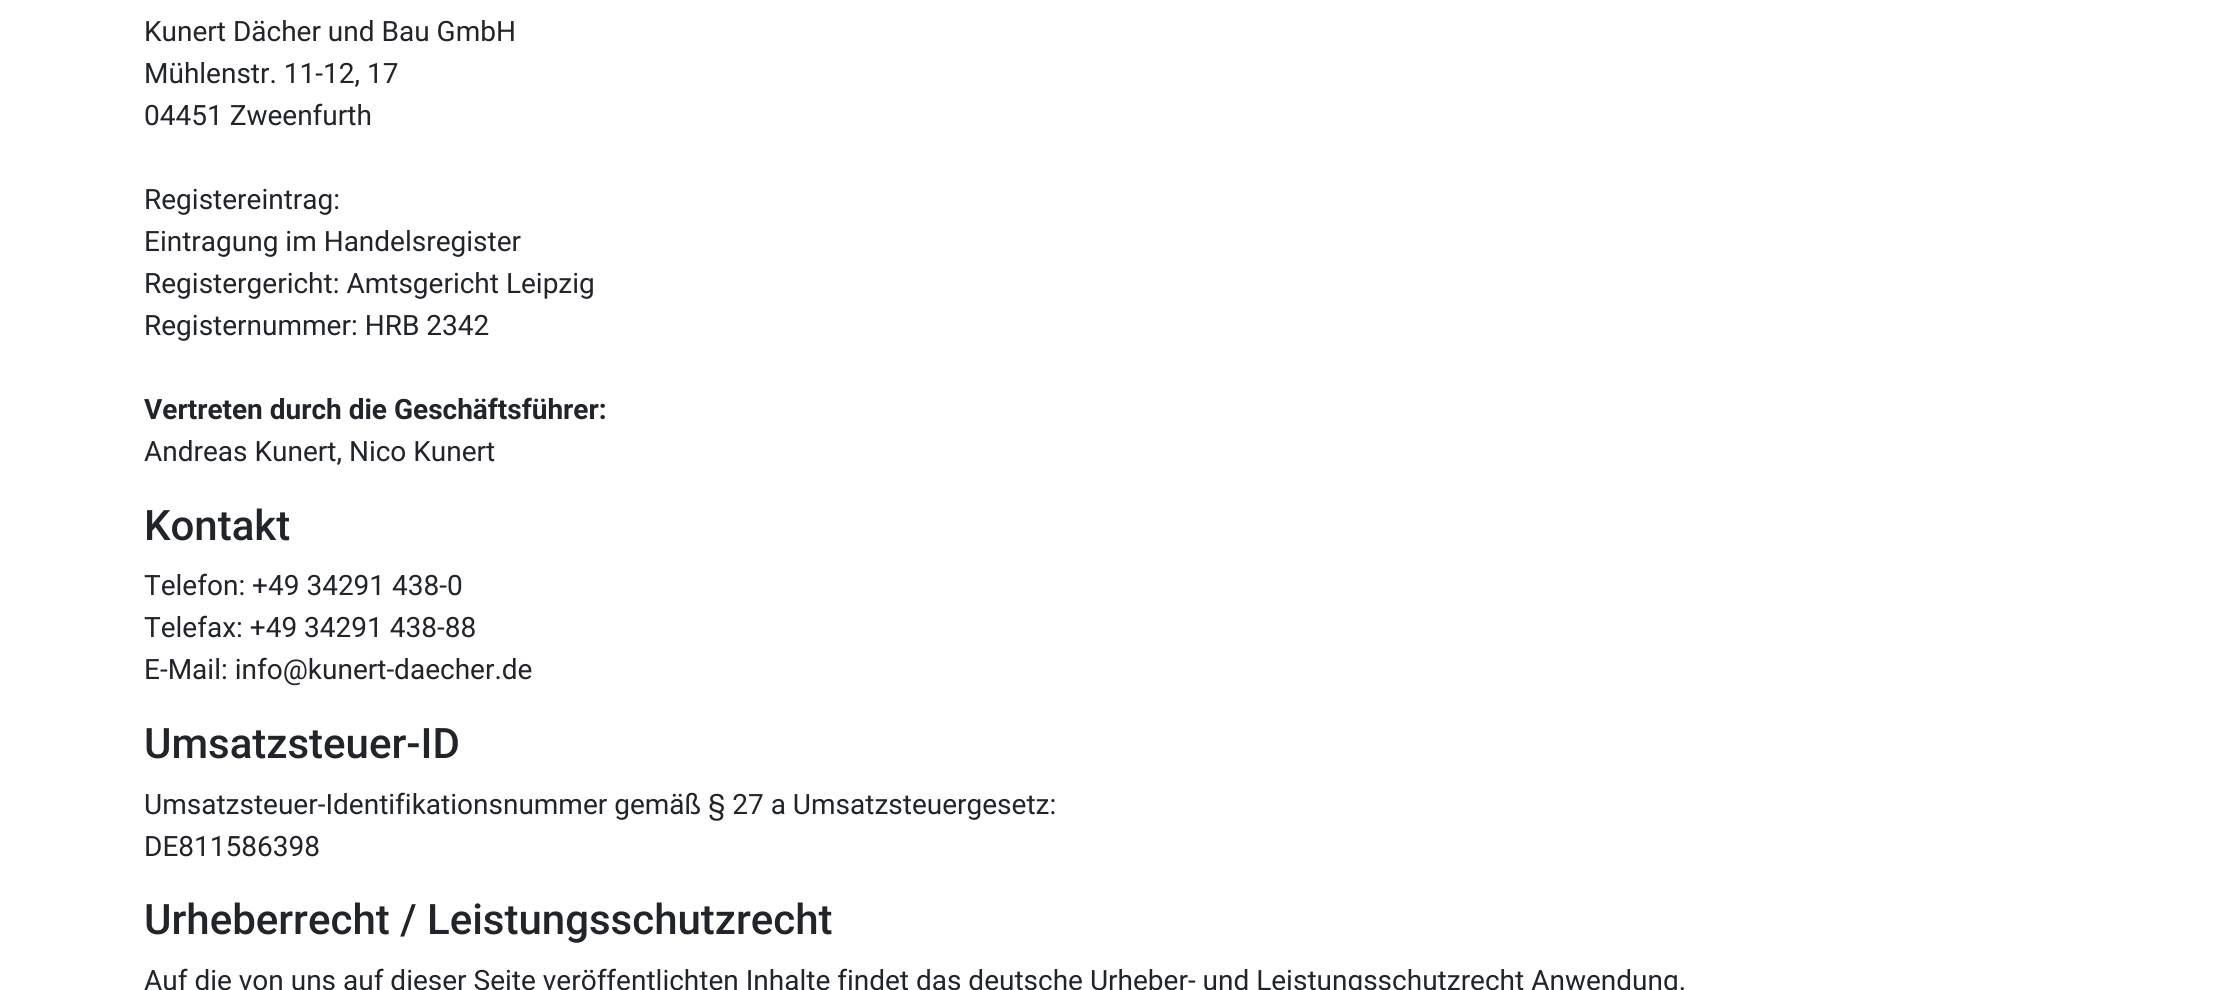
import math
import cairocffi as cairo

surface = cairo.ImageSurface(cairo.FORMAT_RGB24, 2230, 990)
cr = cairo.Context(surface)
options = cairo.FontOptions()
options.set_hint_metrics(cairo.HINT_METRICS_OFF)
options.set_hint_style(cairo.HINT_STYLE_NONE)
cr.set_font_options(options)
cr.set_miter_limit(4)


def use_color(code):
    cr.set_source_rgb(*(v / 255 for v in bytes.fromhex(code[-6:])))


use_color("#ffffff")
cr.paint()
cr.select_font_face("Roboto")
cr.set_font_size(28)
use_color("#212529")
cr.move_to(144, 41)
cr.show_text("Kunert Dächer und Bau GmbH")
cr.move_to(144, 83)
cr.show_text("Mühlenstr. 11-12, 17")
cr.move_to(144, 125)
cr.show_text("04451 Zweenfurth")
cr.move_to(144, 209)
cr.show_text("Registereintrag:")
cr.move_to(144, 251)
cr.show_text("Eintragung im Handelsregister")
cr.move_to(144, 293)
cr.show_text("Registergericht: Amtsgericht Leipzig")
cr.move_to(144, 335)
cr.show_text("Registernummer: HRB 2342")
cr.select_font_face("Roboto", cairo.FONT_SLANT_NORMAL, cairo.FONT_WEIGHT_BOLD)
cr.move_to(144, 419)
cr.show_text("Vertreten durch die Geschäftsführer:")
cr.select_font_face("Roboto")
cr.move_to(144, 461)
cr.show_text("Andreas Kunert, Nico Kunert")
cr.select_font_face("Roboto Medium")
cr.set_font_size(42)
cr.move_to(144, 540)
cr.show_text("Kontakt")
cr.select_font_face("Roboto")
cr.set_font_size(28)
cr.move_to(144, 595)
cr.show_text("Telefon: +49 34291 438-0")
cr.move_to(144, 637)
cr.show_text("Telefax: +49 34291 438-88")
cr.move_to(144, 679)
cr.show_text("E-Mail: info@kunert-daecher.de")
cr.select_font_face("Roboto Medium")
cr.set_font_size(42)
cr.move_to(144, 758)
cr.show_text("Umsatzsteuer-ID")
cr.select_font_face("Roboto")
cr.set_font_size(28)
cr.move_to(144, 814)
cr.show_text("Umsatzsteuer-Identifikationsnummer gemäß § 27 a Umsatzsteuergesetz:")
cr.move_to(144, 856)
cr.show_text("DE811586398")
cr.select_font_face("Roboto Medium")
cr.set_font_size(42)
cr.move_to(144, 934)
cr.show_text("Urheberrecht / Leistungsschutzrecht")
cr.select_font_face("Roboto")
cr.set_font_size(28)
cr.move_to(144, 990)
cr.show_text("Auf die von uns auf dieser Seite veröffentlichten Inhalte findet das deutsche Urheber- und Leistungsschutzrecht Anwendung.")
surface.write_to_png("result.png")
